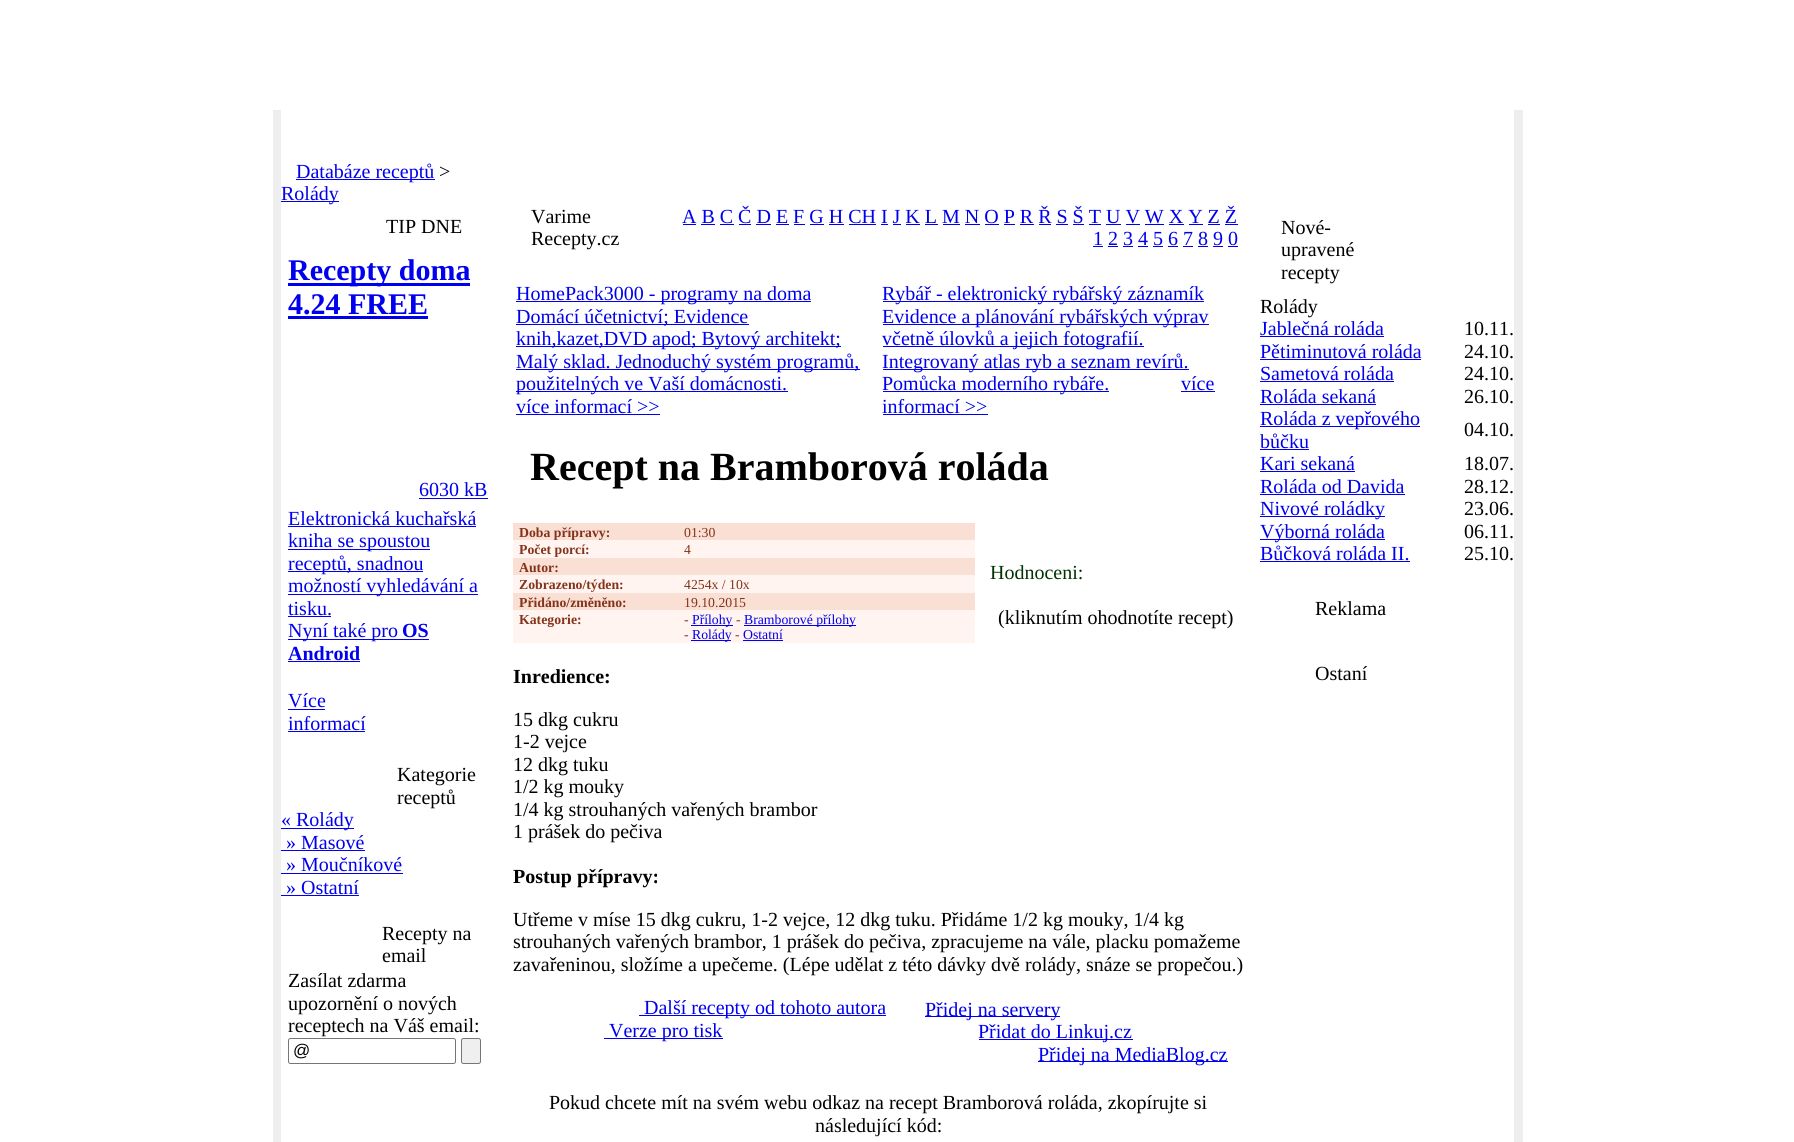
import math
import cairocffi as cairo

surface = cairo.ImageSurface(cairo.FORMAT_RGB24, 1794, 1142)
cr = cairo.Context(surface)
options = cairo.FontOptions()
options.set_hint_metrics(cairo.HINT_METRICS_OFF)
options.set_hint_style(cairo.HINT_STYLE_NONE)
cr.set_font_options(options)
cr.set_miter_limit(4)


def use_color(code):
    cr.set_source_rgb(*(v / 255 for v in bytes.fromhex(code[-6:])))


def round_rect(x, y, w, h, r):
    cr.new_sub_path()
    for i, (u, v) in enumerate([(x + w - r, y + h - r), (x + r, y + h - r), (x + r, y + r), (x + w - r, y + r)]):
        cr.arc(u, v, r, i * math.pi / 2, (i + 1) * math.pi / 2)
    cr.close_path()


use_color("#ffffff")
cr.paint()
use_color("#eeeeee")
cr.rectangle(273, 110, 8, 1032)
cr.fill()
cr.rectangle(1514, 110, 9, 1032)
cr.fill()
use_color("#0000ee")
cr.rectangle(296, 179, 139, 1)
cr.fill()
cr.select_font_face("Liberation Serif")
cr.set_font_size(20)
cr.move_to(296, 178)
cr.show_text("Databáze receptů")
use_color("#000000")
cr.move_to(439, 178)
cr.show_text(">")
use_color("#0000ee")
cr.rectangle(281, 201, 58, 1)
cr.fill()
cr.move_to(281, 200)
cr.show_text("Rolády")
use_color("#000000")
cr.move_to(386, 233)
cr.show_text("TIP DNE")
use_color("#0000ee")
cr.rectangle(288, 283, 182, 3)
cr.fill()
cr.select_font_face("Liberation Serif", cairo.FONT_SLANT_NORMAL, cairo.FONT_WEIGHT_BOLD)
cr.set_font_size(30)
cr.move_to(288, 280)
cr.show_text("Recepty doma")
cr.move_to(288, 314)
cr.show_text("4.24 FREE")
cr.rectangle(288, 316, 140, 3)
cr.fill()
cr.select_font_face("Liberation Serif")
cr.set_font_size(20)
cr.move_to(419, 496)
cr.show_text("6030 kB")
cr.rectangle(419, 498, 69, 1)
cr.fill()
cr.move_to(288, 525)
cr.show_text("Elektronická kuchařská")
cr.rectangle(288, 526, 188, 1)
cr.fill()
cr.rectangle(288, 549, 142, 1)
cr.fill()
cr.move_to(288, 547)
cr.show_text("kniha se spoustou")
cr.rectangle(288, 571, 135, 1)
cr.fill()
cr.move_to(288, 570)
cr.show_text("receptů, snadnou")
cr.rectangle(288, 594, 190, 1)
cr.fill()
cr.move_to(288, 592)
cr.show_text("možností vyhledávání a")
cr.move_to(288, 615)
cr.show_text("tisku.")
cr.rectangle(288, 616, 43, 1)
cr.fill()
cr.rectangle(288, 639, 141, 1)
cr.fill()
cr.move_to(288, 637)
cr.show_text("Nyní také pro")
cr.select_font_face("Liberation Serif", cairo.FONT_SLANT_NORMAL, cairo.FONT_WEIGHT_BOLD)
cr.move_to(402, 637)
cr.show_text("OS")
cr.move_to(288, 660)
cr.show_text("Android")
cr.rectangle(288, 661, 72, 1)
cr.fill()
cr.select_font_face("Liberation Serif")
cr.move_to(288, 707)
cr.show_text("Více")
cr.rectangle(288, 709, 37, 1)
cr.fill()
cr.move_to(288, 730)
cr.show_text("informací")
cr.rectangle(288, 731, 77, 1)
cr.fill()
use_color("#000000")
cr.move_to(397, 781)
cr.show_text("Kategorie")
cr.move_to(397, 804)
cr.show_text("receptů")
use_color("#0000ee")
cr.rectangle(281, 828, 73, 1)
cr.fill()
cr.move_to(281, 826)
cr.show_text("« Rolády")
cr.move_to(286, 849)
cr.show_text("» Masové")
cr.rectangle(281, 850, 84, 1)
cr.fill()
cr.move_to(286, 871)
cr.show_text("» Moučníkové")
cr.rectangle(281, 873, 122, 1)
cr.fill()
cr.move_to(286, 894)
cr.show_text("» Ostatní")
cr.rectangle(281, 895, 78, 1)
cr.fill()
use_color("#000000")
cr.move_to(382, 940)
cr.show_text("Recepty na")
cr.move_to(382, 962)
cr.show_text("email")
cr.move_to(288, 987)
cr.show_text("Zasílat zdarma")
cr.move_to(288, 1010)
cr.show_text("upozornění o nových")
cr.move_to(288, 1032)
cr.show_text("receptech na Váš email:")
round_rect(288.5, 1038.5, 167, 25, 2)
use_color("#767676")
cr.set_line_width(1)
cr.stroke()
cr.select_font_face("Liberation Sans")
cr.set_font_size(17)
use_color("#000000")
cr.move_to(293, 1056)
cr.show_text("@")
use_color("#efefef")
round_rect(461.5, 1038.5, 19, 25, 2)
cr.fill_preserve()
use_color("#767676")
cr.stroke()
cr.select_font_face("Liberation Serif")
cr.set_font_size(20)
use_color("#000000")
cr.move_to(531, 223)
cr.show_text("Varime")
cr.move_to(531, 245)
cr.show_text("Recepty.cz")
use_color("#0000ee")
cr.move_to(682, 223)
cr.show_text("A B C Č D E F G H CH I J K L M N O P R Ř S Š T U V W X Y Z Ž")
cr.rectangle(683, 224, 13, 1)
cr.fill()
cr.rectangle(701, 224, 14, 1)
cr.fill()
cr.rectangle(720, 224, 14, 1)
cr.fill()
cr.rectangle(739, 224, 12, 1)
cr.fill()
cr.rectangle(756, 224, 15, 1)
cr.fill()
cr.rectangle(776, 224, 13, 1)
cr.fill()
cr.rectangle(794, 224, 11, 1)
cr.fill()
cr.rectangle(810, 224, 14, 1)
cr.fill()
cr.rectangle(829, 224, 15, 1)
cr.fill()
cr.rectangle(849, 224, 27, 1)
cr.fill()
cr.rectangle(881, 224, 7, 1)
cr.fill()
cr.rectangle(893, 224, 8, 1)
cr.fill()
cr.rectangle(906, 224, 14, 1)
cr.fill()
cr.rectangle(925, 224, 13, 1)
cr.fill()
cr.rectangle(943, 224, 17, 1)
cr.fill()
cr.rectangle(965, 224, 15, 1)
cr.fill()
cr.rectangle(985, 224, 14, 1)
cr.fill()
cr.rectangle(1004, 224, 11, 1)
cr.fill()
cr.rectangle(1020, 224, 14, 1)
cr.fill()
cr.rectangle(1039, 224, 12, 1)
cr.fill()
cr.rectangle(1056, 224, 12, 1)
cr.fill()
cr.rectangle(1073, 224, 11, 1)
cr.fill()
cr.rectangle(1089, 224, 12, 1)
cr.fill()
cr.rectangle(1106, 224, 15, 1)
cr.fill()
cr.rectangle(1126, 224, 14, 1)
cr.fill()
cr.rectangle(1145, 224, 19, 1)
cr.fill()
cr.rectangle(1169, 224, 15, 1)
cr.fill()
cr.rectangle(1189, 224, 14, 1)
cr.fill()
cr.rectangle(1208, 224, 12, 1)
cr.fill()
cr.rectangle(1225, 224, 13, 1)
cr.fill()
cr.move_to(1093, 245)
cr.show_text("1 2 3 4 5 6 7 8 9 0")
cr.rectangle(1093, 246, 10, 1)
cr.fill()
cr.rectangle(1108, 246, 10, 1)
cr.fill()
cr.rectangle(1123, 246, 10, 1)
cr.fill()
cr.rectangle(1138, 246, 10, 1)
cr.fill()
cr.rectangle(1153, 246, 10, 1)
cr.fill()
cr.rectangle(1168, 246, 10, 1)
cr.fill()
cr.rectangle(1183, 246, 10, 1)
cr.fill()
cr.rectangle(1198, 246, 10, 1)
cr.fill()
cr.rectangle(1213, 246, 10, 1)
cr.fill()
cr.rectangle(1228, 246, 10, 1)
cr.fill()
cr.rectangle(516, 301, 295, 1)
cr.fill()
cr.move_to(516, 300)
cr.show_text("HomePack3000 - programy na doma")
cr.rectangle(516, 324, 233, 1)
cr.fill()
cr.move_to(516, 323)
cr.show_text("Domácí účetnictví; Evidence")
cr.rectangle(516, 346, 325, 1)
cr.fill()
cr.move_to(516, 345)
cr.show_text("knih,kazet,DVD apod; Bytový architekt;")
cr.rectangle(516, 369, 344, 1)
cr.fill()
cr.move_to(516, 368)
cr.show_text("Malý sklad. Jednoduchý systém programů,")
cr.rectangle(516, 391, 272, 1)
cr.fill()
cr.move_to(516, 390)
cr.show_text("použitelných ve Vaší domácnosti.")
cr.move_to(516, 413)
cr.show_text("více informací >>")
cr.rectangle(516, 414, 144, 1)
cr.fill()
cr.rectangle(883, 301, 321, 1)
cr.fill()
cr.move_to(882, 300)
cr.show_text("Rybář - elektronický rybářský záznamík")
cr.rectangle(883, 324, 326, 1)
cr.fill()
cr.move_to(882, 323)
cr.show_text("Evidence a plánování rybářských výprav")
cr.rectangle(883, 346, 261, 1)
cr.fill()
cr.move_to(882, 345)
cr.show_text("včetně úlovků a jejich fotografií.")
cr.rectangle(883, 369, 306, 1)
cr.fill()
cr.move_to(882, 368)
cr.show_text("Integrovaný atlas ryb a seznam revírů.")
cr.rectangle(883, 391, 226, 1)
cr.fill()
cr.move_to(882, 390)
cr.show_text("Pomůcka moderního rybáře.")
cr.move_to(1181, 390)
cr.show_text("více")
cr.rectangle(1181, 391, 34, 1)
cr.fill()
cr.move_to(882, 413)
cr.show_text("informací >>")
cr.rectangle(883, 414, 105, 1)
cr.fill()
cr.select_font_face("Liberation Serif", cairo.FONT_SLANT_NORMAL, cairo.FONT_WEIGHT_BOLD)
cr.set_font_size(40)
use_color("#000000")
cr.move_to(530, 480)
cr.show_text("Recept na Bramborová roláda")
use_color("#fadfd4")
cr.rectangle(513, 523, 462, 17)
cr.fill()
cr.set_font_size(13.75)
use_color("#84331a")
cr.move_to(519, 537)
cr.show_text("Doba přípravy:")
cr.select_font_face("Liberation Serif")
cr.move_to(684, 537)
cr.show_text("01:30")
use_color("#fff4f0")
cr.rectangle(513, 540, 462, 18)
cr.fill()
cr.select_font_face("Liberation Serif", cairo.FONT_SLANT_NORMAL, cairo.FONT_WEIGHT_BOLD)
use_color("#84331a")
cr.move_to(519, 554)
cr.show_text("Počet porcí:")
cr.select_font_face("Liberation Serif")
cr.move_to(684, 554)
cr.show_text("4")
use_color("#fadfd4")
cr.rectangle(513, 558, 462, 17)
cr.fill()
cr.select_font_face("Liberation Serif", cairo.FONT_SLANT_NORMAL, cairo.FONT_WEIGHT_BOLD)
use_color("#84331a")
cr.move_to(519, 572)
cr.show_text("Autor:")
use_color("#fff4f0")
cr.rectangle(513, 575, 462, 18)
cr.fill()
use_color("#84331a")
cr.move_to(519, 589)
cr.show_text("Zobrazeno/týden:")
cr.select_font_face("Liberation Serif")
cr.move_to(684, 589)
cr.show_text("4254x / 10x")
use_color("#fadfd4")
cr.rectangle(513, 593, 462, 17)
cr.fill()
cr.select_font_face("Liberation Serif", cairo.FONT_SLANT_NORMAL, cairo.FONT_WEIGHT_BOLD)
use_color("#84331a")
cr.move_to(519, 607)
cr.show_text("Přidáno/změněno:")
cr.select_font_face("Liberation Serif")
cr.move_to(684, 607)
cr.show_text("19.10.2015")
use_color("#fff4f0")
cr.rectangle(513, 610, 462, 33)
cr.fill()
cr.select_font_face("Liberation Serif", cairo.FONT_SLANT_NORMAL, cairo.FONT_WEIGHT_BOLD)
use_color("#84331a")
cr.move_to(519, 624)
cr.show_text("Kategorie:")
cr.select_font_face("Liberation Serif")
cr.move_to(684, 624)
cr.show_text("-")
use_color("#0000ee")
cr.rectangle(691, 625, 42, 1)
cr.fill()
cr.move_to(692, 624)
cr.show_text("Přílohy")
use_color("#84331a")
cr.move_to(736, 624)
cr.show_text("-")
use_color("#0000ee")
cr.rectangle(744, 625, 112, 1)
cr.fill()
cr.move_to(744, 624)
cr.show_text("Bramborové přílohy")
use_color("#84331a")
cr.move_to(684, 639)
cr.show_text("-")
use_color("#0000ee")
cr.rectangle(691, 640, 40, 1)
cr.fill()
cr.move_to(692, 639)
cr.show_text("Rolády")
use_color("#84331a")
cr.move_to(735, 639)
cr.show_text("-")
use_color("#0000ee")
cr.move_to(743, 639)
cr.show_text("Ostatní")
cr.rectangle(743, 640, 40, 1)
cr.fill()
cr.select_font_face("Liberation Serif", cairo.FONT_SLANT_NORMAL, cairo.FONT_WEIGHT_BOLD)
cr.set_font_size(20)
use_color("#000000")
cr.move_to(513, 683)
cr.show_text("Inredience:")
cr.select_font_face("Liberation Serif")
cr.move_to(513, 726)
cr.show_text("15 dkg cukru")
cr.move_to(513, 748)
cr.show_text("1-2 vejce")
cr.move_to(513, 771)
cr.show_text("12 dkg tuku")
cr.move_to(513, 793)
cr.show_text("1/2 kg mouky")
cr.move_to(513, 816)
cr.show_text("1/4 kg strouhaných vařených brambor")
cr.move_to(513, 838)
cr.show_text("1 prášek do pečiva")
use_color("#003202")
cr.move_to(990, 579)
cr.show_text("Hodnoceni:")
use_color("#000000")
cr.move_to(998, 624)
cr.show_text("(kliknutím ohodnotíte recept)")
cr.select_font_face("Liberation Serif", cairo.FONT_SLANT_NORMAL, cairo.FONT_WEIGHT_BOLD)
cr.move_to(513, 883)
cr.show_text("Postup přípravy:")
cr.select_font_face("Liberation Serif")
cr.move_to(513, 926)
cr.show_text("Utřeme v míse 15 dkg cukru, 1-2 vejce, 12 dkg tuku. Přidáme 1/2 kg mouky, 1/4 kg")
cr.move_to(513, 948)
cr.show_text("strouhaných vařených brambor, 1 prášek do pečiva, zpracujeme na vále, placku pomažeme")
cr.move_to(513, 971)
cr.show_text("zavařeninou, složíme a upečeme. (Lépe udělat z této dávky dvě rolády, snáze se propečou.)")
use_color("#0000ee")
cr.rectangle(639, 1015, 247, 1)
cr.fill()
cr.move_to(644, 1014)
cr.show_text("Další recepty od tohoto autora")
cr.rectangle(604, 1038, 119, 1)
cr.fill()
cr.move_to(609, 1037)
cr.show_text("Verze pro tisk")
cr.rectangle(925, 1016, 135, 1)
cr.fill()
cr.move_to(925, 1016)
cr.show_text("Přidej na servery")
cr.rectangle(979, 1039, 154, 1)
cr.fill()
cr.move_to(978, 1038)
cr.show_text("Přidat do Linkuj.cz")
cr.rectangle(1038, 1061, 190, 1)
cr.fill()
cr.move_to(1038, 1061)
cr.show_text("Přidej na MediaBlog.cz")
use_color("#000000")
cr.move_to(549, 1109)
cr.show_text("Pokud chcete mít na svém webu odkaz na recept Bramborová roláda, zkopírujte si")
cr.move_to(815, 1132)
cr.show_text("následující kód:")
cr.move_to(1281, 234)
cr.show_text("Nové-")
cr.move_to(1281, 256)
cr.show_text("upravené")
cr.move_to(1281, 279)
cr.show_text("recepty")
cr.move_to(1260, 313)
cr.show_text("Rolády")
use_color("#0000ee")
cr.move_to(1260, 335)
cr.show_text("Jablečná roláda")
cr.rectangle(1260, 336, 124, 1)
cr.fill()
use_color("#000000")
cr.move_to(1464, 335)
cr.show_text("10.11.")
use_color("#0000ee")
cr.move_to(1260, 358)
cr.show_text("Pětiminutová roláda")
cr.rectangle(1260, 359, 161, 1)
cr.fill()
use_color("#000000")
cr.move_to(1464, 358)
cr.show_text("24.10.")
use_color("#0000ee")
cr.move_to(1260, 380)
cr.show_text("Sametová roláda")
cr.rectangle(1260, 381, 134, 1)
cr.fill()
use_color("#000000")
cr.move_to(1464, 380)
cr.show_text("24.10.")
use_color("#0000ee")
cr.move_to(1260, 403)
cr.show_text("Roláda sekaná")
cr.rectangle(1260, 404, 116, 1)
cr.fill()
use_color("#000000")
cr.move_to(1464, 403)
cr.show_text("26.10.")
use_color("#0000ee")
cr.rectangle(1260, 426, 160, 1)
cr.fill()
cr.move_to(1260, 425)
cr.show_text("Roláda z vepřového")
cr.move_to(1260, 448)
cr.show_text("bůčku")
cr.rectangle(1260, 449, 49, 1)
cr.fill()
use_color("#000000")
cr.move_to(1464, 436)
cr.show_text("04.10.")
use_color("#0000ee")
cr.move_to(1260, 470)
cr.show_text("Kari sekaná")
cr.rectangle(1260, 471, 95, 1)
cr.fill()
use_color("#000000")
cr.move_to(1464, 470)
cr.show_text("18.07.")
use_color("#0000ee")
cr.move_to(1260, 493)
cr.show_text("Roláda od Davida")
cr.rectangle(1260, 494, 145, 1)
cr.fill()
use_color("#000000")
cr.move_to(1464, 493)
cr.show_text("28.12.")
use_color("#0000ee")
cr.rectangle(1260, 516, 125, 1)
cr.fill()
cr.move_to(1260, 515)
cr.show_text("Nivové roládky")
use_color("#000000")
cr.move_to(1464, 515)
cr.show_text("23.06.")
use_color("#0000ee")
cr.rectangle(1260, 539, 125, 1)
cr.fill()
cr.move_to(1260, 538)
cr.show_text("Výborná roláda")
use_color("#000000")
cr.move_to(1464, 538)
cr.show_text("06.11.")
use_color("#0000ee")
cr.move_to(1260, 560)
cr.show_text("Bůčková roláda II.")
cr.rectangle(1260, 561, 150, 1)
cr.fill()
use_color("#000000")
cr.move_to(1464, 560)
cr.show_text("25.10.")
cr.move_to(1315, 615)
cr.show_text("Reklama")
cr.move_to(1315, 680)
cr.show_text("Ostaní")
surface.write_to_png("result.png")
